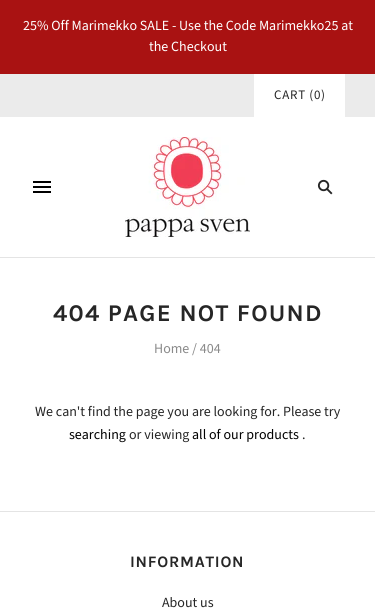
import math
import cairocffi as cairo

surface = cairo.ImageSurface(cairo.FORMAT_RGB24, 375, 609)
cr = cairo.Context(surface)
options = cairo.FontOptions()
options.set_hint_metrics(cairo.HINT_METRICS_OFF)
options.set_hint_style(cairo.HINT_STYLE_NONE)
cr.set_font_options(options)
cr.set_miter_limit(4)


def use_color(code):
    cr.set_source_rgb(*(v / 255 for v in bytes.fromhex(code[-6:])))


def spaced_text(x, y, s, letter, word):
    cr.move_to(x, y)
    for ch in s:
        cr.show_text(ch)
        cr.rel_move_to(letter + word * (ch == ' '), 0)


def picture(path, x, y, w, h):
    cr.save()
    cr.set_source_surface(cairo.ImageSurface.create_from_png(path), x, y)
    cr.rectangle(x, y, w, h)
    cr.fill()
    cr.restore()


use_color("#ffffff")
cr.paint()
use_color("#a91212")
cr.rectangle(0, 0, 375, 74)
cr.fill()
cr.select_font_face("Source Sans Pro")
cr.set_font_size(14)
use_color("#ffffff")
cr.move_to(23, 30)
cr.show_text("25% Off Marimekko SALE - Use the Code Marimekko25 at")
cr.move_to(149, 51)
cr.show_text("the Checkout")
use_color("#e4e4e4")
cr.rectangle(0, 257, 375, 1)
cr.fill()
use_color("#ebebeb")
cr.rectangle(0, 74, 375, 43)
cr.fill()
use_color("#ffffff")
cr.rectangle(254, 74, 91, 43)
cr.fill()
cr.set_font_size(13)
use_color("#262626")
spaced_text(274, 99, "CART (0)", 0.75, 0)
picture("img1.png", 33, 181, 18, 12)
picture("img2.png", 125, 137, 125, 100)
picture("img3.png", 317, 179, 16, 16)
cr.select_font_face("Karla", cairo.FONT_SLANT_NORMAL, cairo.FONT_WEIGHT_BOLD)
cr.set_font_size(24)
spaced_text(53, 321, "404 PAGE NOT FOUND", 1.25, 0)
cr.select_font_face("Source Sans Pro")
cr.set_font_size(14)
use_color("#8a8a8a")
cr.move_to(154, 353)
cr.show_text("Home / 404")
use_color("#262626")
cr.move_to(35, 416)
cr.show_text("We can't find the page you are looking for. Please try")
use_color("#000000")
cr.move_to(69, 439)
cr.show_text("searching")
use_color("#262626")
cr.move_to(129, 439)
cr.show_text("or viewing")
use_color("#000000")
cr.move_to(192, 439)
cr.show_text("all of our products")
use_color("#262626")
cr.move_to(302, 439)
cr.show_text(".")
use_color("#e4e4e4")
cr.rectangle(0, 511, 375, 1)
cr.fill()
cr.select_font_face("Karla", cairo.FONT_SLANT_NORMAL, cairo.FONT_WEIGHT_BOLD)
cr.set_font_size(16)
use_color("#262626")
spaced_text(130, 567, "INFORMATION", 0.75, 0)
cr.select_font_face("Source Sans Pro")
cr.set_font_size(14)
cr.move_to(162, 607)
cr.show_text("About us")
surface.write_to_png("result.png")
